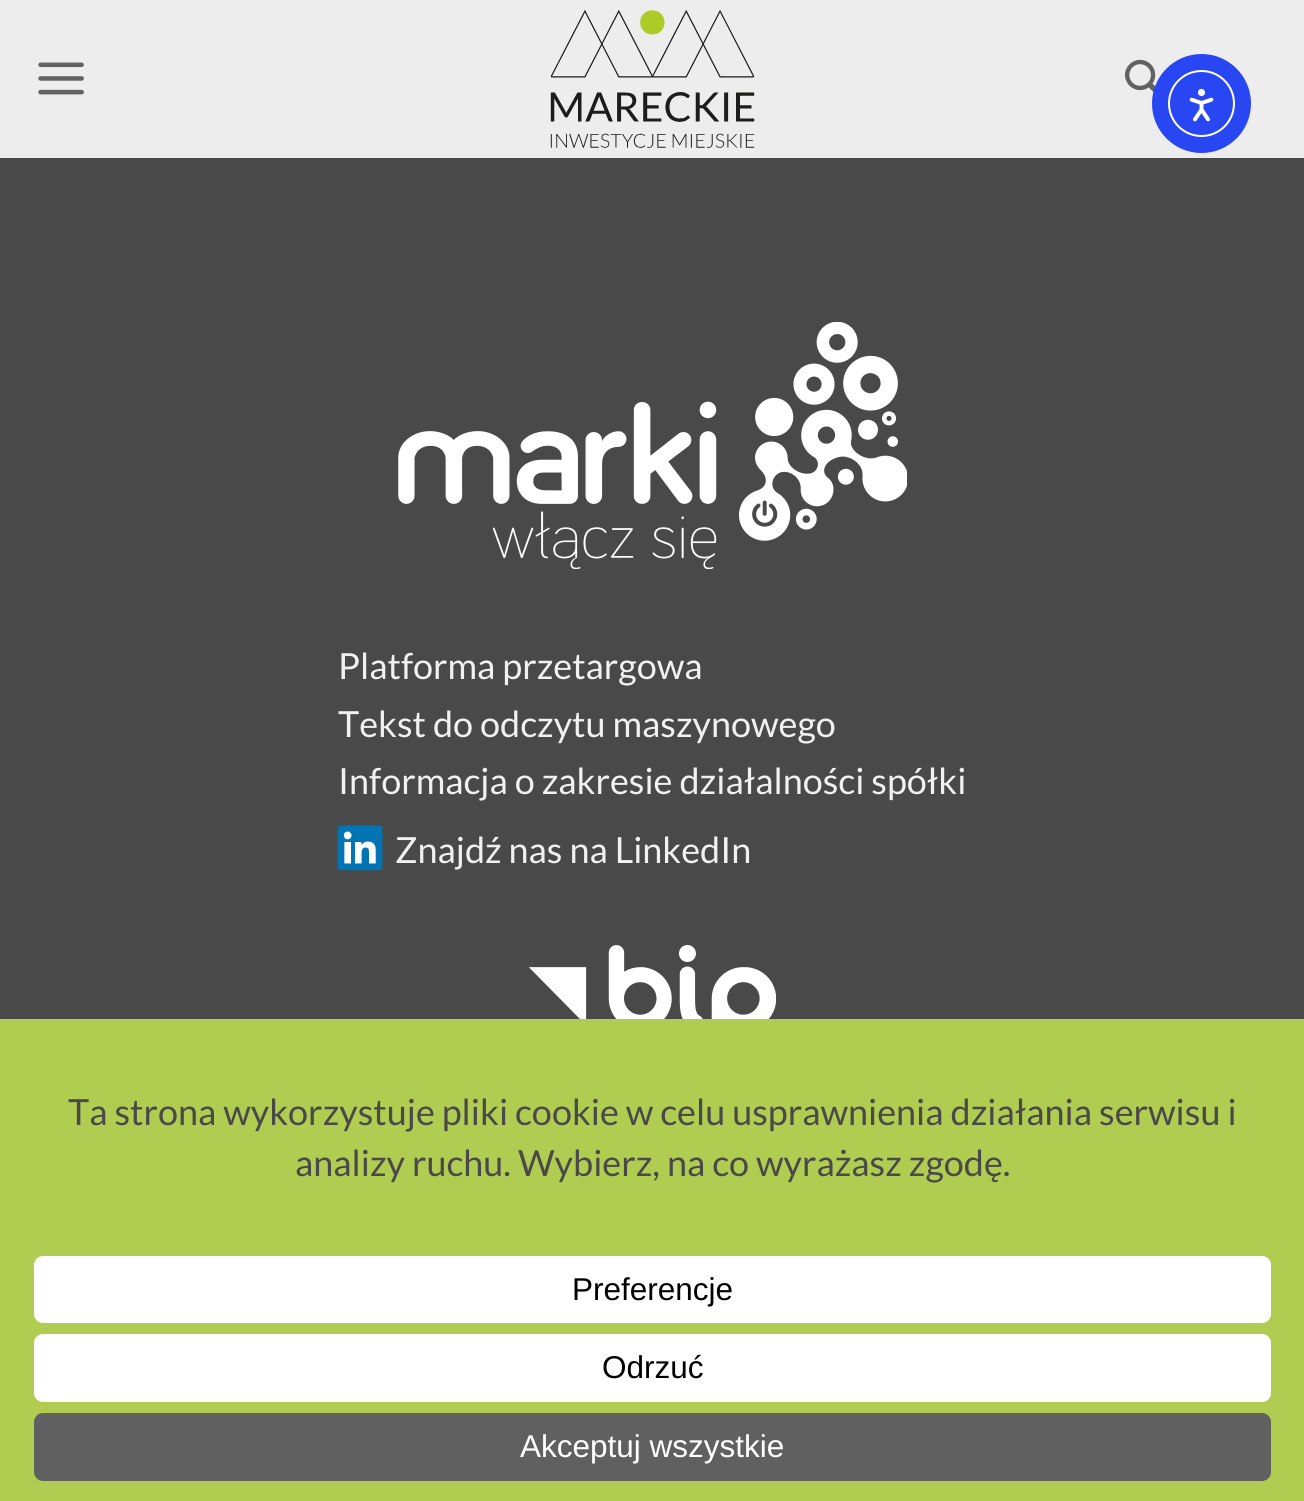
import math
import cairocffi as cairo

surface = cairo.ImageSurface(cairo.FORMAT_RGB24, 1304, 1501)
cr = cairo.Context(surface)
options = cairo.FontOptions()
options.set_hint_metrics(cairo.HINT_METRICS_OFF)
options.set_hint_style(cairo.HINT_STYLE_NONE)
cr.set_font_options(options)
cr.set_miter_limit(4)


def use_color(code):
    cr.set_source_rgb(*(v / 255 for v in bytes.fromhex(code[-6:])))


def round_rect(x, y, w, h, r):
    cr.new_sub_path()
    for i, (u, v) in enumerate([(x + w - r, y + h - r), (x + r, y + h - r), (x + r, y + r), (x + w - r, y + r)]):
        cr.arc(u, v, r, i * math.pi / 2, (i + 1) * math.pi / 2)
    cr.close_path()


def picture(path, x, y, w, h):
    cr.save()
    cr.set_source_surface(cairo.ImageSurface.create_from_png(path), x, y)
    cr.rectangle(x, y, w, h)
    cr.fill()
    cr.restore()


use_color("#494949")
cr.paint()
cr.set_source_rgba(1, 1, 1, 0.9)
cr.rectangle(0, 0, 1304, 158)
cr.fill()
picture("img4.png", 1125, 59, 31, 34)
use_color("#2847f3")
cr.arc(1201.5, 103.5, 49.5, 0, 2 * math.pi)
cr.fill()
cr.arc(1201.5, 103.5, 32.5, 0, 2 * math.pi)
use_color("#ffffff")
cr.stroke()
picture("img1.png", 1189, 88, 25, 34)
picture("img2.png", 38, 62, 46, 33)
picture("img3.png", 550, 9, 205, 139)
picture("img5.png", 398, 322, 509, 247)
cr.select_font_face("Lato")
cr.set_font_size(36)
use_color("#f1f1f1")
cr.move_to(338, 679)
cr.show_text("Platforma przetargowa")
cr.move_to(338, 737)
cr.show_text("Tekst do odczytu maszynowego")
cr.move_to(338, 794)
cr.show_text("Informacja o zakresie działalności spółki")
picture("img6.png", 337, 825, 46, 46)
cr.move_to(395, 863)
cr.show_text("Znajdź nas na LinkedIn")
picture("img7.png", 529, 945, 247, 74)
use_color("#b1cd51")
cr.rectangle(0, 1019, 1304, 482)
cr.fill()
use_color("#494949")
cr.move_to(68, 1125)
cr.show_text("Ta strona wykorzystuje pliki cookie w celu usprawnienia działania serwisu i")
cr.move_to(295, 1176)
cr.show_text("analizy ruchu. Wybierz, na co wyrażasz zgodę.")
use_color("#ffffff")
round_rect(34, 1256, 1237, 67, 9)
cr.fill()
cr.select_font_face("Liberation Sans")
cr.set_font_size(31.5)
use_color("#000000")
cr.move_to(572, 1300)
cr.show_text("Preferencje")
use_color("#ffffff")
round_rect(34, 1334, 1237, 68, 9)
cr.fill()
use_color("#000000")
cr.move_to(602, 1378)
cr.show_text("Odrzuć")
use_color("#606060")
round_rect(34, 1413, 1237, 68, 9)
cr.fill()
use_color("#ffffff")
cr.move_to(520, 1457)
cr.show_text("Akceptuj wszystkie")
surface.write_to_png("result.png")
